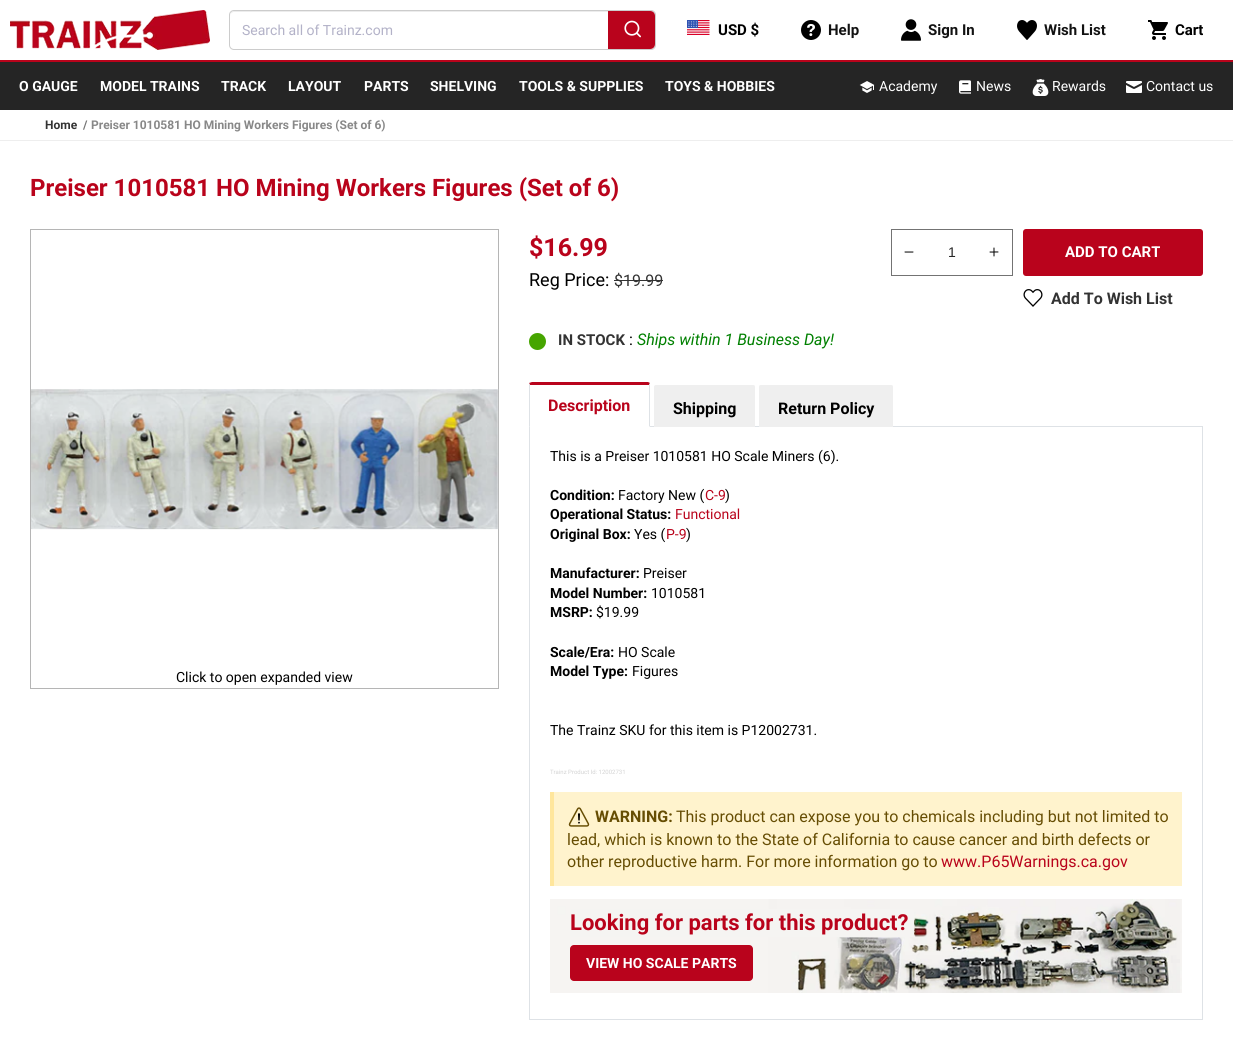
import math
import cairocffi as cairo

surface = cairo.ImageSurface(cairo.FORMAT_RGB24, 1233, 1049)
cr = cairo.Context(surface)
options = cairo.FontOptions()
options.set_hint_metrics(cairo.HINT_METRICS_OFF)
options.set_hint_style(cairo.HINT_STYLE_NONE)
cr.set_font_options(options)
cr.set_miter_limit(4)


def use_color(code):
    cr.set_source_rgb(*(v / 255 for v in bytes.fromhex(code[-6:])))


def round_rect(x, y, w, h, r):
    cr.new_sub_path()
    for i, (u, v) in enumerate([(x + w - r, y + h - r), (x + r, y + h - r), (x + r, y + r), (x + w - r, y + r)]):
        cr.arc(u, v, r, i * math.pi / 2, (i + 1) * math.pi / 2)
    cr.close_path()


def picture(path, x, y, w, h):
    cr.save()
    cr.set_source_surface(cairo.ImageSurface.create_from_png(path), x, y)
    cr.rectangle(x, y, w, h)
    cr.fill()
    cr.restore()


use_color("#ffffff")
cr.paint()
picture("img1.png", 10, 10, 200, 40)
round_rect(229.5, 10.5, 426, 39, 4.5)
use_color("#cccccc")
cr.set_line_width(1)
cr.stroke()
use_color("#ffffff")
round_rect(229, 10, 427, 40, 3)
cr.fill()
use_color("#ececec")
cr.new_path()
cr.move_to(234, 12)
cr.line_to(651, 12)
cr.curve_to(653, 12, 655, 14, 655, 16)
cr.curve_to(655, 13, 654, 11, 651, 11)
cr.line_to(234, 11)
cr.curve_to(233, 11, 231, 12, 231, 13)
cr.line_to(230, 16)
cr.curve_to(230, 14, 232, 12, 234, 12)
cr.close_path()
cr.fill()
round_rect(229.5, 10.5, 426, 39, 4.5)
use_color("#cccccc")
cr.stroke()
cr.select_font_face("Roboto")
cr.set_font_size(14)
use_color("#b3b2c8")
cr.move_to(242, 35)
cr.show_text("Search all of Trainz.com")
use_color("#b9031c")
cr.new_path()
cr.move_to(608, 11)
cr.line_to(650, 11)
cr.curve_to(653, 11, 655, 13, 655, 16)
cr.line_to(655, 44)
cr.curve_to(655, 47, 653, 49, 650, 49)
cr.line_to(608, 49)
cr.close_path()
cr.fill()
picture("img2.png", 624, 20, 17, 18)
picture("img3.png", 687, 20, 23, 15)
cr.select_font_face("Roboto", cairo.FONT_SLANT_NORMAL, cairo.FONT_WEIGHT_BOLD)
cr.set_font_size(15)
use_color("#000000")
cr.move_to(718, 35)
cr.show_text("USD $")
picture("img4.png", 801, 20, 20, 20)
use_color("#121212")
cr.move_to(828, 35)
cr.show_text("Help")
picture("img5.png", 901, 19, 20, 22)
cr.move_to(928, 35)
cr.show_text("Sign In")
picture("img6.png", 1017, 20, 20, 20)
cr.move_to(1044, 35)
cr.show_text("Wish List")
picture("img7.png", 1148, 20, 20, 20)
use_color("#000000")
cr.move_to(1175, 35)
cr.show_text("Cart")
use_color("#252525")
cr.rectangle(0, 62, 1233, 48)
cr.fill()
use_color("#b9031b")
cr.rectangle(0, 60, 1233, 2)
cr.fill()
cr.set_font_size(14)
use_color("#ffffff")
cr.move_to(19, 91)
cr.show_text("O GAUGE")
cr.move_to(100, 91)
cr.show_text("MODEL TRAINS")
cr.move_to(221, 91)
cr.show_text("TRACK")
cr.move_to(288, 91)
cr.show_text("LAYOUT")
cr.move_to(364, 91)
cr.show_text("PARTS")
cr.move_to(430, 91)
cr.show_text("SHELVING")
cr.move_to(519, 91)
cr.show_text("TOOLS & SUPPLIES")
cr.move_to(665, 91)
cr.show_text("TOYS & HOBBIES")
picture("img8.png", 859, 81, 16, 12)
cr.select_font_face("Roboto")
cr.move_to(879, 91)
cr.show_text("Academy")
picture("img9.png", 959, 80, 12, 14)
cr.move_to(976, 91)
cr.show_text("News")
picture("img10.png", 1032, 79, 17, 17)
cr.move_to(1052, 91)
cr.show_text("Rewards")
picture("img11.png", 1126, 81, 16, 12)
cr.move_to(1146, 91)
cr.show_text("Contact us")
use_color("#eeeeee")
cr.rectangle(0, 140, 1233, 1)
cr.fill()
cr.select_font_face("Roboto", cairo.FONT_SLANT_NORMAL, cairo.FONT_WEIGHT_BOLD)
cr.set_font_size(12)
use_color("#333333")
cr.move_to(45, 129)
cr.show_text("Home")
use_color("#757575")
cr.move_to(83, 129)
cr.show_text("/")
use_color("#888888")
cr.move_to(91, 129)
cr.show_text("Preiser 1010581 HO Mining Workers Figures (Set of 6)")
cr.set_font_size(24)
use_color("#b9031b")
cr.move_to(30, 196)
cr.show_text("Preiser 1010581 HO Mining Workers Figures (Set of 6)")
cr.rectangle(30.5, 229.5, 468, 459)
use_color("#b5b5b5")
cr.stroke()
picture("img12.png", 31, 389, 468, 141)
cr.select_font_face("Roboto")
cr.set_font_size(14)
use_color("#000000")
cr.move_to(176, 682)
cr.show_text("Click to open expanded view")
cr.select_font_face("Roboto", cairo.FONT_SLANT_NORMAL, cairo.FONT_WEIGHT_BOLD)
cr.set_font_size(25)
use_color("#b9031b")
cr.move_to(529, 256)
cr.show_text("$16.99")
cr.select_font_face("Roboto")
cr.set_font_size(18)
use_color("#000000")
cr.move_to(529, 286)
cr.show_text("Reg Price:")
cr.set_font_size(16)
use_color("#333333")
cr.move_to(614, 286)
cr.show_text("$19.99")
cr.rectangle(614, 280, 49, 1)
cr.fill()
picture("img13.png", 904, 251, 10, 2)
picture("img14.png", 989, 247, 10, 10)
cr.rectangle(891.5, 229.5, 121, 46)
use_color("#737373")
cr.stroke()
cr.select_font_face("Liberation Sans")
cr.set_font_size(14)
use_color("#262626")
cr.move_to(948, 257)
cr.show_text("1")
use_color("#b9031c")
round_rect(1023, 229, 180, 47, 3)
cr.fill()
cr.select_font_face("Roboto", cairo.FONT_SLANT_NORMAL, cairo.FONT_WEIGHT_BOLD)
cr.set_font_size(15)
use_color("#ffffff")
cr.move_to(1065, 257)
cr.show_text("ADD TO CART")
picture("img15.png", 1023, 289, 20, 18)
cr.set_font_size(16)
use_color("#333333")
cr.move_to(1051, 304)
cr.show_text("Add To Wish List")
use_color("#46a500")
cr.new_path()
cr.arc(537.5, 341.5, 8.5, 0, 2 * math.pi)
cr.fill()
cr.set_font_size(15)
use_color("#333333")
cr.move_to(558, 345)
cr.show_text("IN STOCK")
cr.select_font_face("Roboto")
cr.set_font_size(16)
use_color("#000000")
cr.move_to(629, 345)
cr.show_text(":")
cr.select_font_face("Roboto", cairo.FONT_SLANT_ITALIC)
use_color("#008000")
cr.move_to(637, 345)
cr.show_text("Ships within 1 Business Day!")
use_color("#dee2e6")
cr.rectangle(529, 426, 674, 1)
cr.fill()
use_color("#b9031c")
cr.new_path()
cr.move_to(532, 382)
cr.line_to(529, 383)
cr.line_to(530, 385)
cr.line_to(649, 385)
cr.line_to(650, 383)
cr.line_to(648, 382)
cr.close_path()
cr.fill()
use_color("#dee2e6")
cr.new_path()
cr.move_to(650, 427)
cr.line_to(650, 383)
cr.line_to(649, 385)
cr.line_to(649, 426)
cr.close_path()
cr.fill()
use_color("#ffffff")
cr.new_path()
cr.move_to(650, 427)
cr.line_to(649, 426)
cr.line_to(530, 426)
cr.line_to(529, 427)
cr.close_path()
cr.fill()
use_color("#dee2e6")
cr.new_path()
cr.move_to(529, 427)
cr.line_to(530, 426)
cr.line_to(530, 385)
cr.line_to(529, 383)
cr.line_to(529, 384)
cr.close_path()
cr.fill()
cr.select_font_face("Roboto", cairo.FONT_SLANT_NORMAL, cairo.FONT_WEIGHT_BOLD)
use_color("#b9031b")
cr.move_to(548, 411)
cr.show_text("Description")
use_color("#efefef")
cr.new_path()
cr.move_to(656.5, 385)
cr.line_to(752.5, 385)
cr.curve_to(754, 385, 755, 386, 755, 387.5)
cr.line_to(755, 430)
cr.line_to(654, 430)
cr.line_to(654, 387.5)
cr.curve_to(654, 386, 655, 385, 656.5, 385)
cr.close_path()
cr.fill()
cr.new_path()
cr.move_to(656, 385)
cr.line_to(654, 386)
cr.line_to(655, 388)
cr.line_to(754, 388)
cr.line_to(755, 386)
cr.curve_to(754, 385, 753, 385, 752, 385)
cr.close_path()
cr.fill()
use_color("#000000")
cr.move_to(673, 414)
cr.show_text("Shipping")
use_color("#efefef")
cr.new_path()
cr.move_to(761.5, 385)
cr.line_to(890.5, 385)
cr.curve_to(892, 385, 893, 386, 893, 387.5)
cr.line_to(893, 430)
cr.line_to(759, 430)
cr.line_to(759, 387.5)
cr.curve_to(759, 386, 760, 385, 761.5, 385)
cr.close_path()
cr.fill()
cr.new_path()
cr.move_to(762, 385)
cr.curve_to(761, 385, 760, 385, 759, 386)
cr.line_to(760, 388)
cr.line_to(892, 388)
cr.line_to(893, 386)
cr.curve_to(892, 385, 891, 385, 890, 385)
cr.close_path()
cr.fill()
use_color("#000000")
cr.move_to(778, 414)
cr.show_text("Return Policy")
use_color("#ffffff")
cr.rectangle(654, 427, 239, 3)
cr.fill()
use_color("#dee2e6")
cr.rectangle(1202, 427, 1, 593)
cr.fill()
cr.rectangle(529, 1019, 674, 1)
cr.fill()
cr.rectangle(529, 427, 1, 593)
cr.fill()
cr.select_font_face("Roboto")
cr.set_font_size(14)
use_color("#000000")
cr.move_to(550, 461)
cr.show_text("This is a Preiser 1010581 HO Scale Miners (6).")
cr.select_font_face("Roboto", cairo.FONT_SLANT_NORMAL, cairo.FONT_WEIGHT_BOLD)
cr.move_to(550, 500)
cr.show_text("Condition:")
cr.select_font_face("Roboto")
cr.move_to(618, 500)
cr.show_text("Factory New (")
use_color("#b9031b")
cr.move_to(705, 500)
cr.show_text("C-9")
use_color("#000000")
cr.move_to(725, 500)
cr.show_text(")")
cr.select_font_face("Roboto", cairo.FONT_SLANT_NORMAL, cairo.FONT_WEIGHT_BOLD)
cr.move_to(550, 519)
cr.show_text("Operational Status:")
cr.select_font_face("Roboto")
use_color("#b9031b")
cr.move_to(675, 519)
cr.show_text("Functional")
cr.select_font_face("Roboto", cairo.FONT_SLANT_NORMAL, cairo.FONT_WEIGHT_BOLD)
use_color("#000000")
cr.move_to(550, 539)
cr.show_text("Original Box:")
cr.select_font_face("Roboto")
cr.move_to(634, 539)
cr.show_text("Yes (")
use_color("#b9031b")
cr.move_to(666, 539)
cr.show_text("P-9")
use_color("#000000")
cr.move_to(686, 539)
cr.show_text(")")
cr.select_font_face("Roboto", cairo.FONT_SLANT_NORMAL, cairo.FONT_WEIGHT_BOLD)
cr.move_to(550, 578)
cr.show_text("Manufacturer:")
cr.select_font_face("Roboto")
cr.move_to(643, 578)
cr.show_text("Preiser")
cr.select_font_face("Roboto", cairo.FONT_SLANT_NORMAL, cairo.FONT_WEIGHT_BOLD)
cr.move_to(550, 598)
cr.show_text("Model Number:")
cr.select_font_face("Roboto")
cr.move_to(651, 598)
cr.show_text("1010581")
cr.select_font_face("Roboto", cairo.FONT_SLANT_NORMAL, cairo.FONT_WEIGHT_BOLD)
cr.move_to(550, 617)
cr.show_text("MSRP:")
cr.select_font_face("Roboto")
cr.move_to(596, 617)
cr.show_text("$19.99")
cr.select_font_face("Roboto", cairo.FONT_SLANT_NORMAL, cairo.FONT_WEIGHT_BOLD)
cr.move_to(550, 657)
cr.show_text("Scale/Era:")
cr.select_font_face("Roboto")
cr.move_to(618, 657)
cr.show_text("HO Scale")
cr.select_font_face("Roboto", cairo.FONT_SLANT_NORMAL, cairo.FONT_WEIGHT_BOLD)
cr.move_to(550, 676)
cr.show_text("Model Type:")
cr.select_font_face("Roboto")
cr.move_to(632, 676)
cr.show_text("Figures")
cr.move_to(550, 735)
cr.show_text("The Trainz SKU for this item is P12002731.")
cr.set_font_size(6)
use_color("#d3d3d3")
cr.move_to(550, 774)
cr.show_text("Trainz Product Id: 12002731")
use_color("#fff3cd")
cr.rectangle(554, 792, 628, 94)
cr.fill()
use_color("#ffe69c")
cr.rectangle(550, 792, 4, 94)
cr.fill()
picture("img16.png", 568, 807, 22, 20)
cr.select_font_face("Roboto", cairo.FONT_SLANT_NORMAL, cairo.FONT_WEIGHT_BOLD)
cr.set_font_size(16)
use_color("#664d03")
cr.move_to(595, 822)
cr.show_text("WARNING:")
cr.select_font_face("Roboto")
cr.move_to(676, 822)
cr.show_text("This product can expose you to chemicals including but not limited to")
cr.move_to(567, 845)
cr.show_text("lead, which is known to the State of California to cause cancer and birth defects or")
cr.move_to(567, 867)
cr.show_text("other reproductive harm. For more information go to")
use_color("#b9031b")
cr.move_to(941, 867)
cr.show_text("www.P65Warnings.ca.gov")
picture("img17.png", 550, 899, 632, 94)
use_color("#f5f4f2")
round_rect(570, 909, 344, 28, 2)
cr.fill()
cr.select_font_face("Roboto", cairo.FONT_SLANT_NORMAL, cairo.FONT_WEIGHT_BOLD)
cr.set_font_size(22)
use_color("#b9031b")
cr.move_to(570, 930)
cr.show_text("Looking for parts for this product?")
use_color("#b9031c")
round_rect(570, 945, 183, 36, 4)
cr.fill()
cr.set_font_size(14)
use_color("#ffffff")
cr.move_to(586, 968)
cr.show_text("VIEW HO SCALE PARTS")
surface.write_to_png("result.png")
